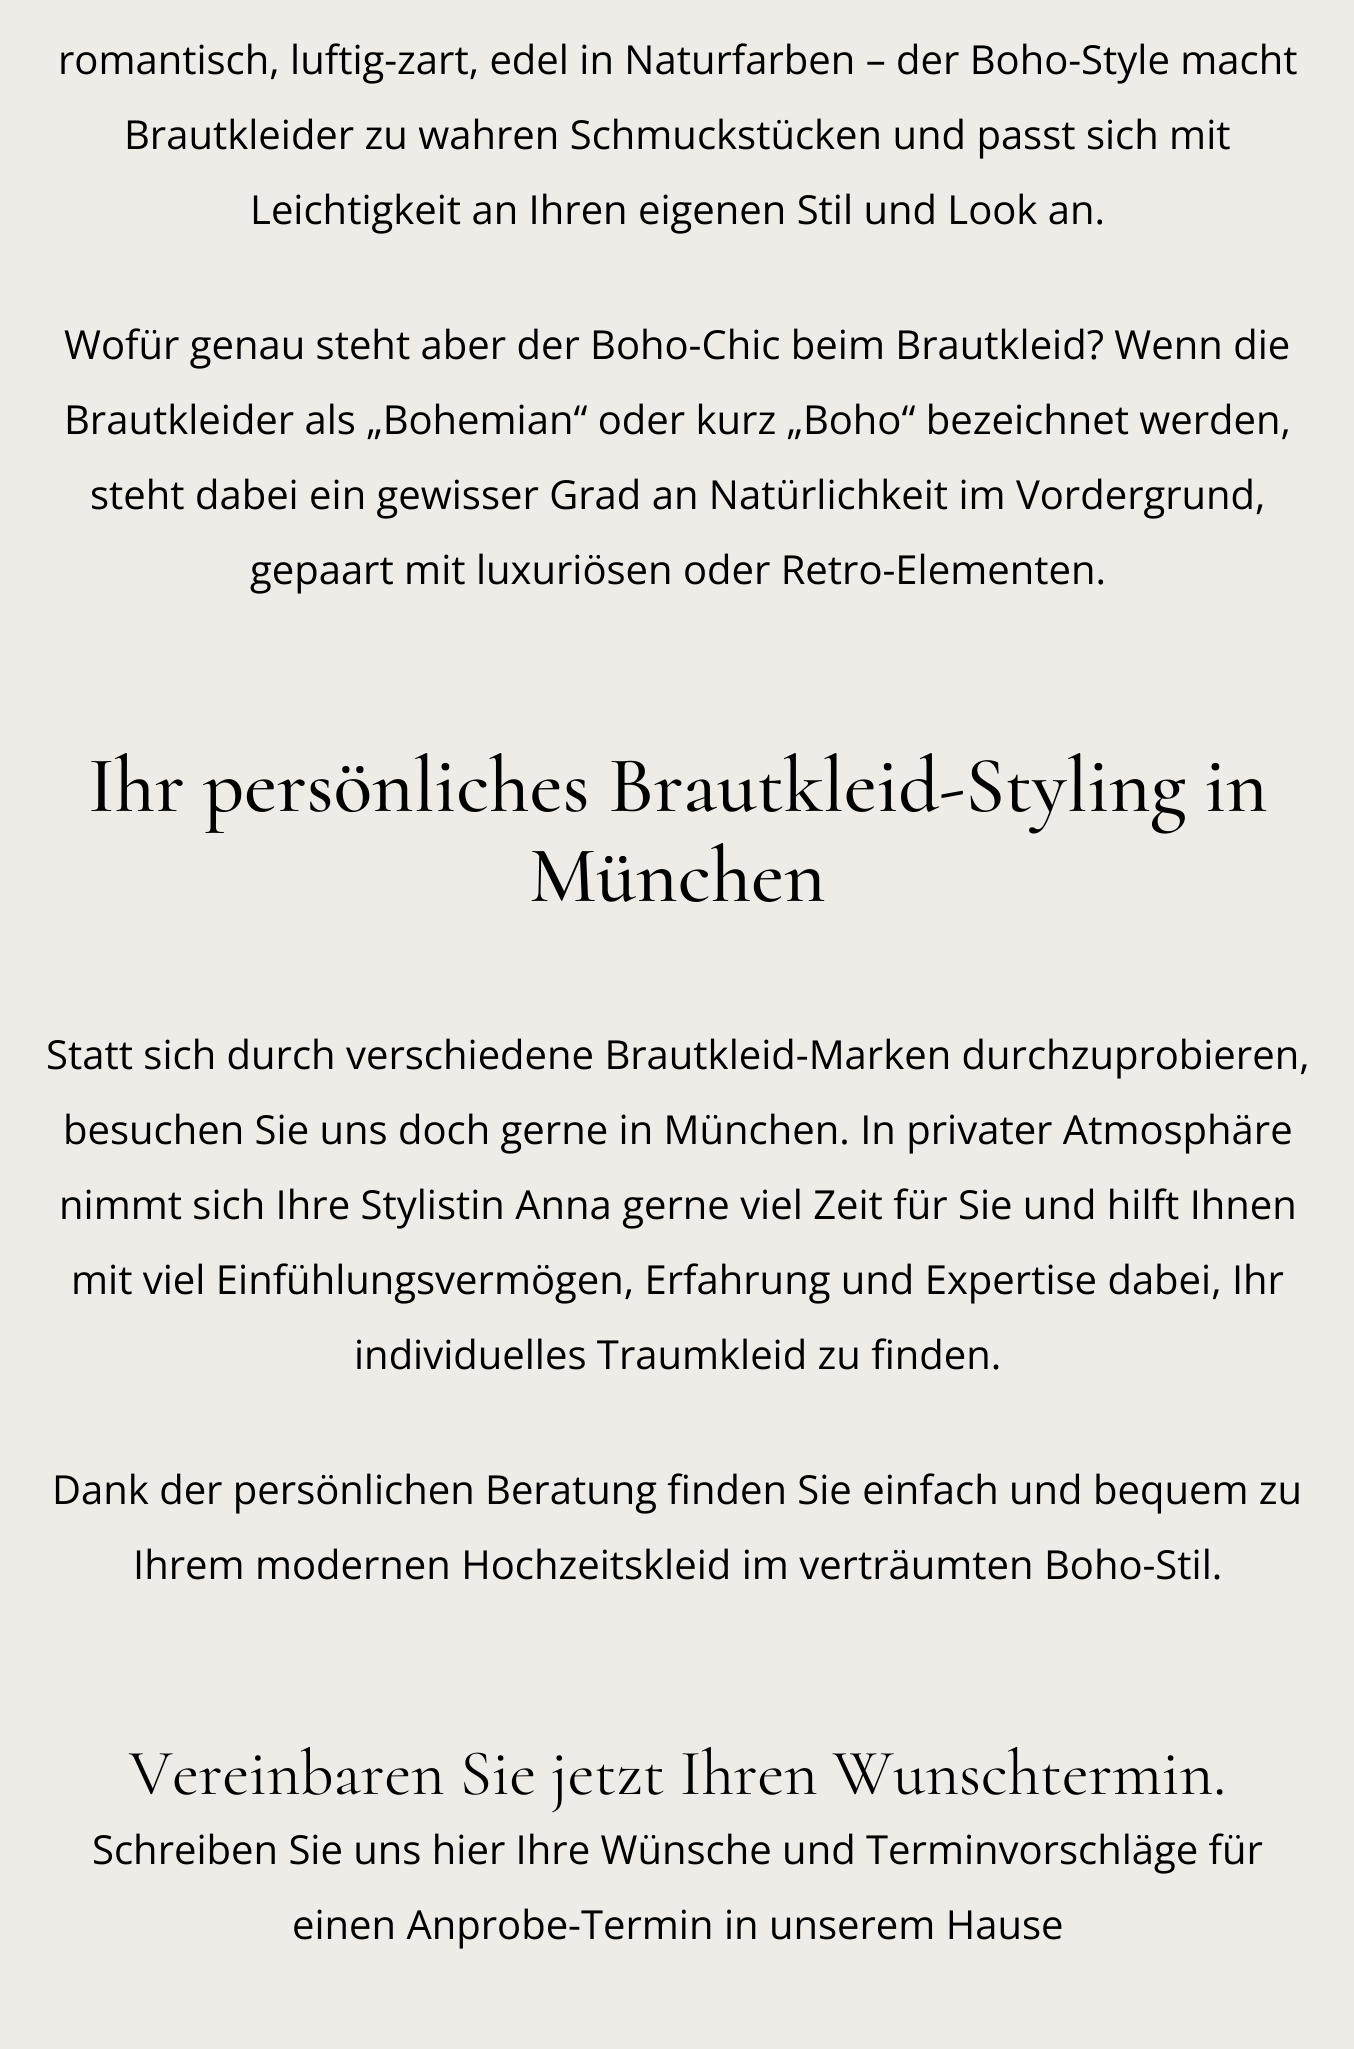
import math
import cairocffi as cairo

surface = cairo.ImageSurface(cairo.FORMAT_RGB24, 1354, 2049)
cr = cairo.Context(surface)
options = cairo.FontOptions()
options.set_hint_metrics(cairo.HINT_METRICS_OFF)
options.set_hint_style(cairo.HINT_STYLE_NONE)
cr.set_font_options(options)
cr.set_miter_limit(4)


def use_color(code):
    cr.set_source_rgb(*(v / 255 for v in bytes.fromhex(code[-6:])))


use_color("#efece8")
cr.paint()
cr.select_font_face("Open Sans")
cr.set_font_size(40)
use_color("#000000")
cr.move_to(58, 74)
cr.show_text("romantisch, luftig-zart, edel in Naturfarben – der Boho-Style macht")
cr.move_to(124, 149)
cr.show_text("Brautkleider zu wahren Schmuckstücken und passt sich mit")
cr.move_to(250, 224)
cr.show_text("Leichtigkeit an Ihren eigenen Stil und Look an.")
cr.move_to(64, 359)
cr.show_text("Wofür genau steht aber der Boho-Chic beim Brautkleid? Wenn die")
cr.move_to(64, 434)
cr.show_text("Brautkleider als „Bohemian“ oder kurz „Boho“ bezeichnet werden,")
cr.move_to(90, 509)
cr.show_text("steht dabei ein gewisser Grad an Natürlichkeit im Vordergrund,")
cr.move_to(250, 584)
cr.show_text("gepaart mit luxuriösen oder Retro-Elementen.")
cr.select_font_face("Cormorant Medium")
cr.set_font_size(80)
cr.move_to(88, 811)
cr.show_text("Ihr persönliches Brautkleid-Styling in")
cr.move_to(529, 901)
cr.show_text("München")
cr.select_font_face("Open Sans")
cr.set_font_size(40)
cr.move_to(46, 1069)
cr.show_text("Statt sich durch verschiedene Brautkleid-Marken durchzuprobieren,")
cr.move_to(63, 1144)
cr.show_text("besuchen Sie uns doch gerne in München. In privater Atmosphäre")
cr.move_to(59, 1219)
cr.show_text("nimmt sich Ihre Stylistin Anna gerne viel Zeit für Sie und hilft Ihnen")
cr.move_to(71, 1294)
cr.show_text("mit viel Einfühlungsvermögen, Erfahrung und Expertise dabei, Ihr")
cr.move_to(354, 1369)
cr.show_text("individuelles Traumkleid zu finden.")
cr.move_to(52, 1504)
cr.show_text("Dank der persönlichen Beratung finden Sie einfach und bequem zu")
cr.move_to(133, 1579)
cr.show_text("Ihrem modernen Hochzeitskleid im verträumten Boho-Stil.")
cr.select_font_face("Cormorant")
cr.set_font_size(65)
cr.move_to(129, 1794)
cr.show_text("Vereinbaren Sie jetzt Ihren Wunschtermin.")
cr.select_font_face("Open Sans")
cr.set_font_size(40)
cr.move_to(92, 1864)
cr.show_text("Schreiben Sie uns hier Ihre Wünsche und Terminvorschläge für")
cr.move_to(292, 1939)
cr.show_text("einen Anprobe-Termin in unserem Hause")
surface.write_to_png("result.png")
